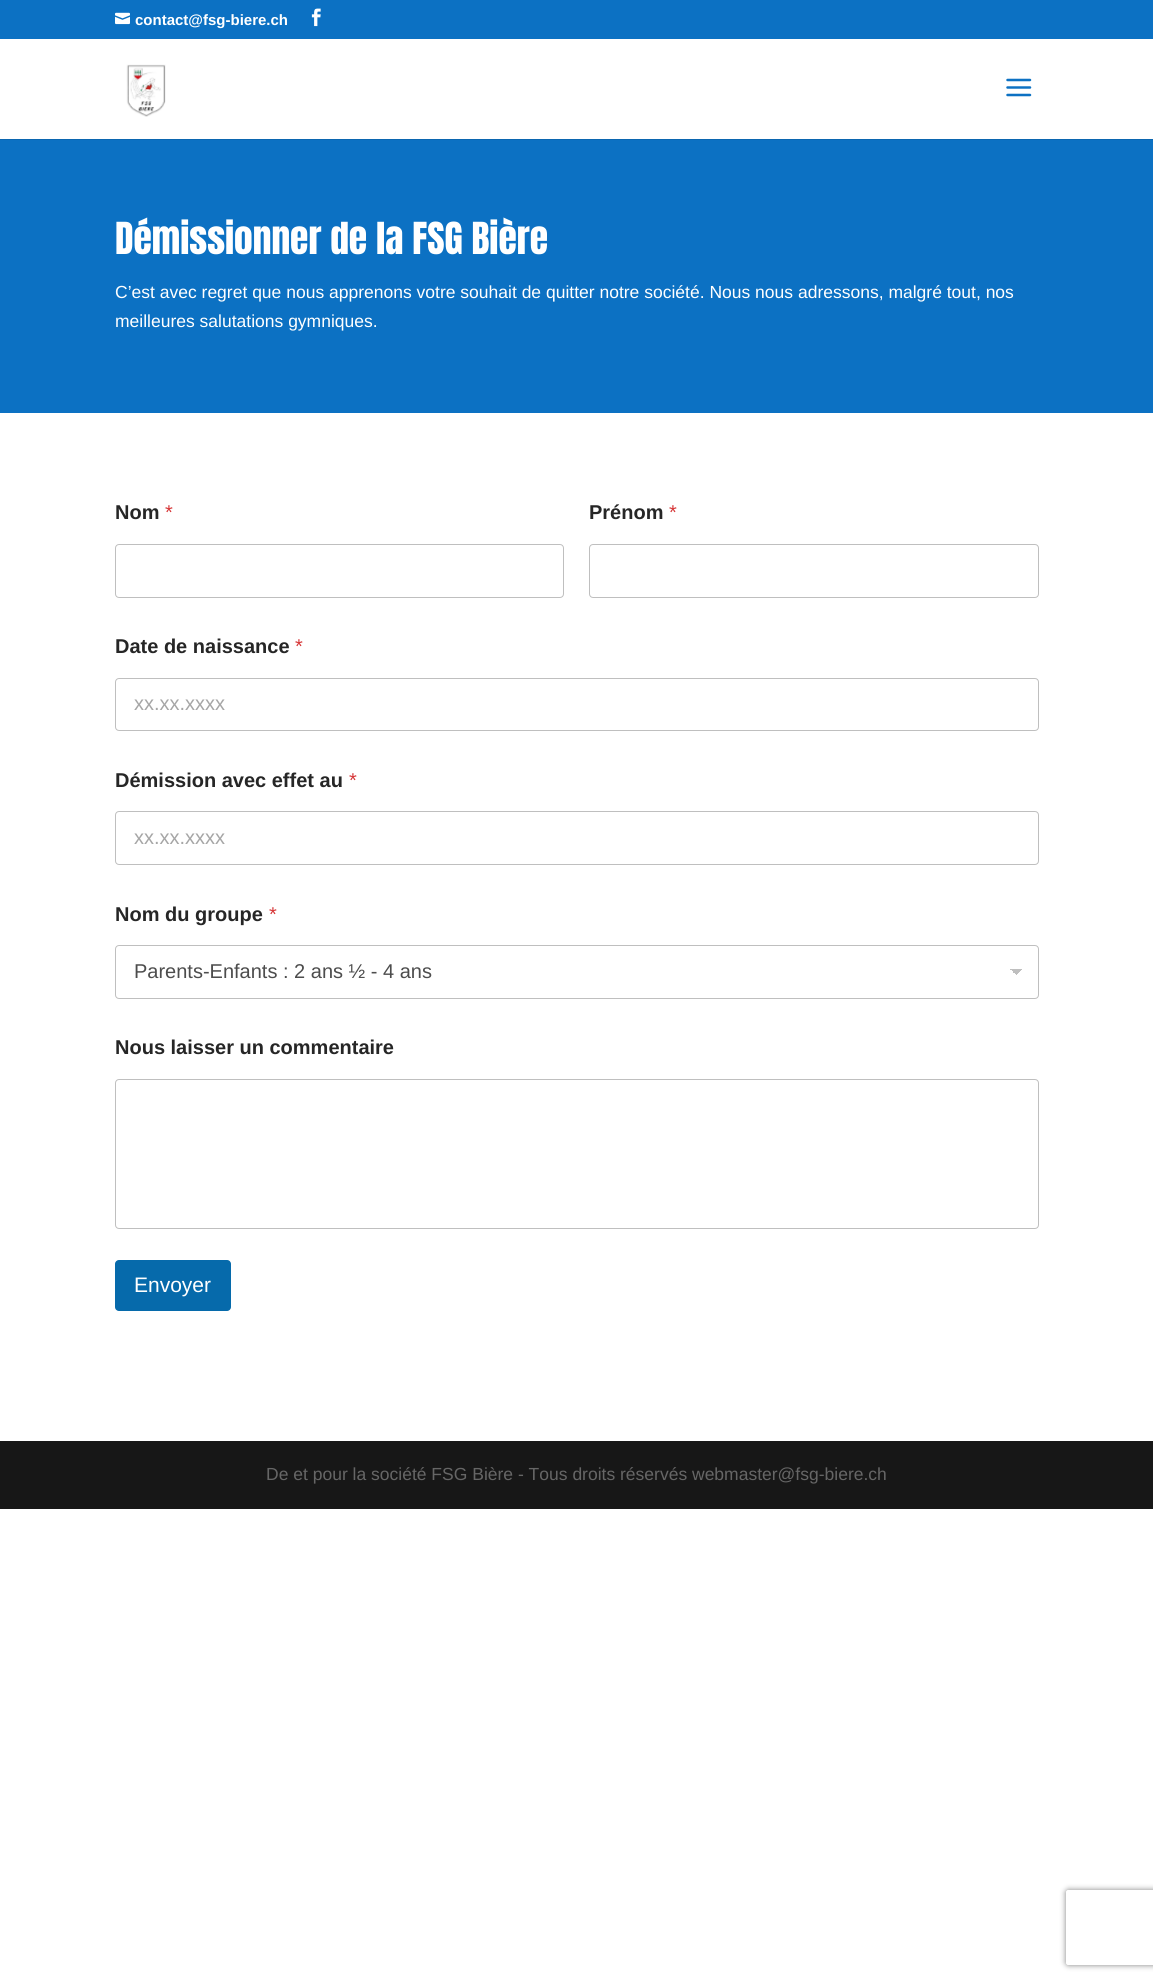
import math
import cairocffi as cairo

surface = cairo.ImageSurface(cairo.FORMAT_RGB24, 1153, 1982)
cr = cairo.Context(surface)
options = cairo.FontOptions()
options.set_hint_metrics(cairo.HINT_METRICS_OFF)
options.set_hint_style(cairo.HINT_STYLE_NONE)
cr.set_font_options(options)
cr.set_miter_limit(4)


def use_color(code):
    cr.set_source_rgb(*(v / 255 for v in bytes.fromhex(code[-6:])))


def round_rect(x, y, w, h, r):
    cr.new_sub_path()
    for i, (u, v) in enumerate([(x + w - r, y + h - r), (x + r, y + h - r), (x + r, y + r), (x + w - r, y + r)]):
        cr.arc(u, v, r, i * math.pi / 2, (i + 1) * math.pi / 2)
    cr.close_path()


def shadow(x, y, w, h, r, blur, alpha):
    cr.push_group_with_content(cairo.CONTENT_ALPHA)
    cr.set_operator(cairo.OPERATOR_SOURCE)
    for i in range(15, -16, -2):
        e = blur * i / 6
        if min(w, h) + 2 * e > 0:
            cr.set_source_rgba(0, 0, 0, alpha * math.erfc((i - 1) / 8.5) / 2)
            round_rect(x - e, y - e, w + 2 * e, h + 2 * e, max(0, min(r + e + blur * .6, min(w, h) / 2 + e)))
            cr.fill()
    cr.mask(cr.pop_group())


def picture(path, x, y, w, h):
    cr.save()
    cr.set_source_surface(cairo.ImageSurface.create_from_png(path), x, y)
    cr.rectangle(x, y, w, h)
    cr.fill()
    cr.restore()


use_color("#ffffff")
cr.paint()
use_color("#0c71c3")
cr.rectangle(0, 0, 1153, 39)
cr.fill()
picture("img1.png", 115, 12, 15, 13)
cr.select_font_face("Liberation Sans", cairo.FONT_SLANT_NORMAL, cairo.FONT_WEIGHT_BOLD)
cr.set_font_size(15)
use_color("#ffffff")
cr.move_to(135, 25)
cr.show_text("contact@fsg-biere.ch")
picture("img2.png", 311, 8, 10, 19)
use_color("#0b66b0")
cr.new_path()
cr.move_to(0, 139)
cr.line_to(0, 140)
cr.line_to(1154, 140)
cr.line_to(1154, 40)
cr.line_to(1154, 139)
cr.close_path()
cr.fill()
picture("img3.png", 126, 64, 40, 53)
picture("img4.png", 1006, 78, 26, 19)
use_color("#0c71c3")
cr.rectangle(0, 140, 1153, 273)
cr.fill()
cr.select_font_face("Anton")
cr.set_font_size(37.5)
use_color("#ffffff")
cr.move_to(115, 254)
cr.show_text("Démissionner de la FSG Bière")
cr.select_font_face("Liberation Sans")
cr.set_font_size(17.5)
cr.move_to(115, 298)
cr.show_text("C’est avec regret que nous apprenons votre souhait de quitter notre société. Nous nous adressons, malgré tout, nos")
cr.move_to(115, 327)
cr.show_text("meilleures salutations gymniques.")
cr.select_font_face("Liberation Sans", cairo.FONT_SLANT_NORMAL, cairo.FONT_WEIGHT_BOLD)
cr.set_font_size(20)
use_color("#262626")
cr.move_to(115, 519)
cr.show_text("Nom")
cr.select_font_face("Liberation Sans")
use_color("#d63637")
cr.move_to(165, 519)
cr.show_text("*")
round_rect(115.5, 544.5, 448, 53, 3.5)
use_color("#bfbfbf")
cr.set_line_width(1)
cr.stroke()
cr.select_font_face("Liberation Sans", cairo.FONT_SLANT_NORMAL, cairo.FONT_WEIGHT_BOLD)
use_color("#262626")
cr.move_to(589, 519)
cr.show_text("Prénom")
cr.select_font_face("Liberation Sans")
use_color("#d63637")
cr.move_to(669, 519)
cr.show_text("*")
round_rect(589.5, 544.5, 449, 53, 3.5)
use_color("#bfbfbf")
cr.stroke()
cr.select_font_face("Liberation Sans", cairo.FONT_SLANT_NORMAL, cairo.FONT_WEIGHT_BOLD)
use_color("#262626")
cr.move_to(115, 653)
cr.show_text("Date de naissance")
cr.select_font_face("Liberation Sans")
use_color("#d63637")
cr.move_to(295, 653)
cr.show_text("*")
round_rect(115.5, 678.5, 923, 52, 3.5)
use_color("#bfbfbf")
cr.stroke()
use_color("#a6a6a6")
cr.move_to(134, 710)
cr.show_text("xx.xx.xxxx")
cr.select_font_face("Liberation Sans", cairo.FONT_SLANT_NORMAL, cairo.FONT_WEIGHT_BOLD)
use_color("#262626")
cr.move_to(115, 787)
cr.show_text("Démission avec effet au")
cr.select_font_face("Liberation Sans")
use_color("#d63637")
cr.move_to(349, 787)
cr.show_text("*")
round_rect(115.5, 811.5, 923, 53, 3.5)
use_color("#bfbfbf")
cr.stroke()
use_color("#a6a6a6")
cr.move_to(134, 844)
cr.show_text("xx.xx.xxxx")
cr.select_font_face("Liberation Sans", cairo.FONT_SLANT_NORMAL, cairo.FONT_WEIGHT_BOLD)
use_color("#262626")
cr.move_to(115, 921)
cr.show_text("Nom du groupe")
cr.select_font_face("Liberation Sans")
use_color("#d63637")
cr.move_to(269, 921)
cr.show_text("*")
gradient = cairo.LinearGradient(1016, 969, 1023, 975)
gradient.add_color_stop_rgba(0.5, 0.749, 0.749, 0.749, 1)
gradient.add_color_stop_rgba(0.5, 1, 1, 1, 1)
cr.set_source(gradient)
cr.rectangle(1016, 969, 7, 6)
cr.fill()
gradient = cairo.LinearGradient(1010, 975, 1016, 969)
gradient.add_color_stop_rgba(0.5, 1, 1, 1, 1)
gradient.add_color_stop_rgba(0.5, 0.749, 0.749, 0.749, 1)
cr.set_source(gradient)
cr.rectangle(1010, 969, 6, 5)
cr.fill()
round_rect(115.5, 945.5, 923, 53, 3.5)
use_color("#bfbfbf")
cr.stroke()
use_color("#4d4d4d")
cr.move_to(134, 978)
cr.show_text("Parents-Enfants : 2 ans ½ - 4 ans")
cr.select_font_face("Liberation Sans", cairo.FONT_SLANT_NORMAL, cairo.FONT_WEIGHT_BOLD)
use_color("#262626")
cr.move_to(115, 1054)
cr.show_text("Nous laisser un commentaire")
round_rect(115.5, 1079.5, 923, 149, 3.5)
use_color("#bfbfbf")
cr.stroke()
use_color("#066aab")
round_rect(115, 1260, 116, 51, 4)
cr.fill()
cr.select_font_face("Liberation Sans")
cr.set_font_size(21)
use_color("#ffffff")
cr.move_to(134, 1292)
cr.show_text("Envoyer")
use_color("#171717")
cr.rectangle(0, 1441, 1153, 68)
cr.fill()
cr.set_font_size(17.5)
use_color("#666666")
cr.move_to(266, 1480)
cr.show_text("De et pour la société FSG Bière - Tous droits réservés webmaster@fsg-biere.ch")
cr.save()
cr.set_fill_rule(cairo.FILL_RULE_EVEN_ODD)
cr.new_path()
cr.move_to(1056, 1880)
cr.line_to(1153, 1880)
cr.line_to(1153, 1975)
cr.line_to(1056, 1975)
cr.close_path()
cr.move_to(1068.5, 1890)
cr.line_to(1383.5, 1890)
cr.curve_to(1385, 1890, 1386, 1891, 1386, 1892.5)
cr.line_to(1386, 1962.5)
cr.curve_to(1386, 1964, 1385, 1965, 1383.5, 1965)
cr.line_to(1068.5, 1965)
cr.curve_to(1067, 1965, 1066, 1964, 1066, 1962.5)
cr.line_to(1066, 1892.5)
cr.curve_to(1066, 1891, 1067, 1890, 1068.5, 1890)
cr.close_path()
cr.clip()
use_color("#808080")
shadow(1066, 1890, 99, 75, 2.5, 3, 1)
cr.restore()
surface.write_to_png("result.png")
